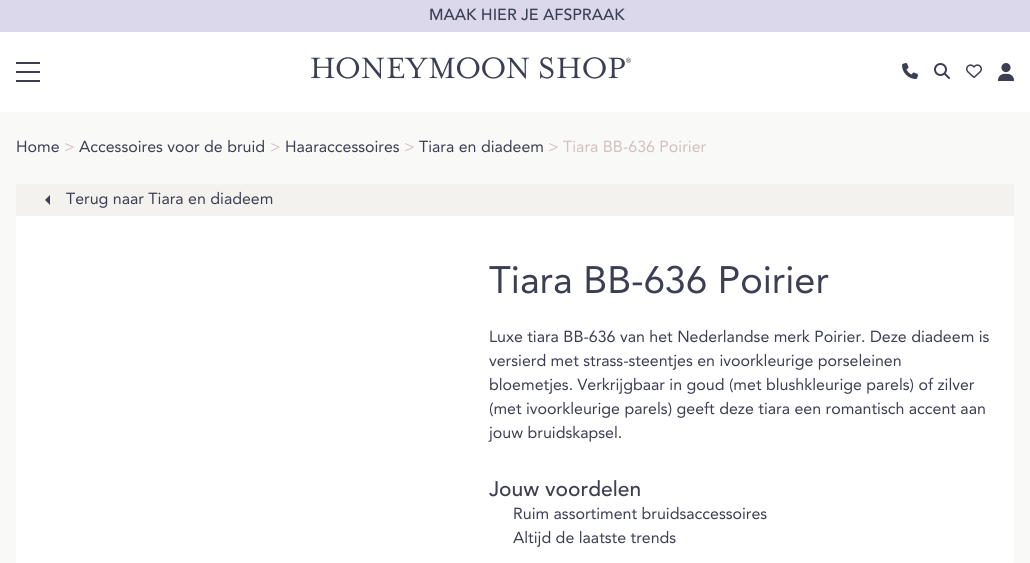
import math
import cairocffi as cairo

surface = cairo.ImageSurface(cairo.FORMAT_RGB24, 1030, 563)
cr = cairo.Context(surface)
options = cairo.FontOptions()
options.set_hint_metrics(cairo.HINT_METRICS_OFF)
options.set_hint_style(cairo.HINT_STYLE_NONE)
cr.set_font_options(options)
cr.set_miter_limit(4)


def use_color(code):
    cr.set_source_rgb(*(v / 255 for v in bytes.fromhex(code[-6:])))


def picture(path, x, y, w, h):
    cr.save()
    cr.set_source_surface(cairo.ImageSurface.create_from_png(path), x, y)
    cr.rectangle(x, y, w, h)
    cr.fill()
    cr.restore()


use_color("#ffffff")
cr.paint()
use_color("#dbd8ec")
cr.rectangle(0, 0, 1030, 32)
cr.fill()
cr.select_font_face("Avenir Medium")
cr.set_font_size(16)
use_color("#3c3e53")
cr.move_to(429, 20)
cr.show_text("MAAK HIER JE AFSPRAAK")
cr.rectangle(16, 62, 24, 2)
cr.fill()
cr.rectangle(16, 71, 24, 2)
cr.fill()
cr.rectangle(16, 80, 24, 2)
cr.fill()
picture("img1.png", 311, 57, 320, 22)
picture("img2.png", 902, 63, 16, 16)
picture("img3.png", 934, 63, 16, 16)
picture("img4.png", 966, 64, 16, 14)
picture("img5.png", 998, 63, 16, 18)
use_color("#f9f9f7")
cr.rectangle(0, 112, 1030, 451)
cr.fill()
cr.select_font_face("Avenir")
use_color("#3c3e53")
cr.move_to(16, 152)
cr.show_text("Home")
use_color("#d1c0bf")
cr.move_to(64, 152)
cr.show_text(">")
use_color("#3c3e53")
cr.move_to(79, 152)
cr.show_text("Accessoires voor de bruid")
use_color("#d1c0bf")
cr.move_to(270, 152)
cr.show_text(">")
use_color("#3c3e53")
cr.move_to(285, 152)
cr.show_text("Haaraccessoires")
use_color("#d1c0bf")
cr.move_to(404, 152)
cr.show_text(">")
use_color("#3c3e53")
cr.move_to(419, 152)
cr.show_text("Tiara en diadeem")
use_color("#d1c0bf")
cr.move_to(548, 152)
cr.show_text("> Tiara BB-636 Poirier")
use_color("#f3f2ef")
cr.rectangle(16, 184, 998, 32)
cr.fill()
use_color("#3c3e53")
cr.new_path()
cr.move_to(50, 195)
cr.line_to(50, 205)
cr.line_to(45, 200)
cr.close_path()
cr.fill()
cr.move_to(66, 204)
cr.show_text("Terug naar Tiara en diadeem")
use_color("#ffffff")
cr.new_path()
cr.move_to(16, 216)
cr.line_to(1014, 216)
cr.line_to(1014, 551)
cr.curve_to(1014, 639.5, 942.5, 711, 854, 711)
cr.line_to(16, 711)
cr.close_path()
cr.fill()
cr.set_font_size(38)
use_color("#3c3e53")
cr.move_to(489, 293)
cr.show_text("Tiara BB-636 Poirier")
cr.set_font_size(16)
cr.move_to(489, 342)
cr.show_text("Luxe tiara BB-636 van het Nederlandse merk Poirier. Deze diadeem is")
cr.move_to(489, 366)
cr.show_text("versierd met strass-steentjes en ivoorkleurige porseleinen")
cr.move_to(489, 390)
cr.show_text("bloemetjes. Verkrijgbaar in goud (met blushkleurige parels) of zilver")
cr.move_to(489, 414)
cr.show_text("(met ivoorkleurige parels) geeft deze tiara een romantisch accent aan")
cr.move_to(489, 438)
cr.show_text("jouw bruidskapsel.")
cr.select_font_face("Avenir Medium")
cr.set_font_size(21)
cr.move_to(489, 496)
cr.show_text("Jouw voordelen")
cr.select_font_face("Avenir")
cr.set_font_size(16)
cr.move_to(513, 519)
cr.show_text("Ruim assortiment bruidsaccessoires")
cr.move_to(513, 543)
cr.show_text("Altijd de laatste trends")
surface.write_to_png("result.png")
